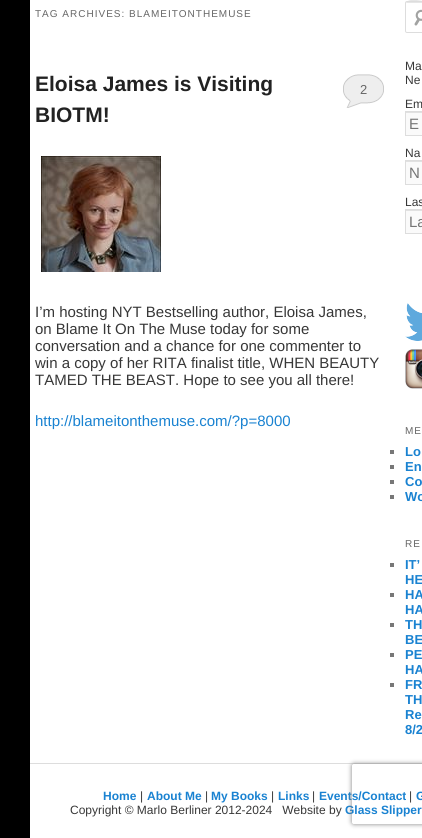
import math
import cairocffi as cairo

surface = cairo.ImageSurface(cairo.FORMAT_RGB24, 422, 838)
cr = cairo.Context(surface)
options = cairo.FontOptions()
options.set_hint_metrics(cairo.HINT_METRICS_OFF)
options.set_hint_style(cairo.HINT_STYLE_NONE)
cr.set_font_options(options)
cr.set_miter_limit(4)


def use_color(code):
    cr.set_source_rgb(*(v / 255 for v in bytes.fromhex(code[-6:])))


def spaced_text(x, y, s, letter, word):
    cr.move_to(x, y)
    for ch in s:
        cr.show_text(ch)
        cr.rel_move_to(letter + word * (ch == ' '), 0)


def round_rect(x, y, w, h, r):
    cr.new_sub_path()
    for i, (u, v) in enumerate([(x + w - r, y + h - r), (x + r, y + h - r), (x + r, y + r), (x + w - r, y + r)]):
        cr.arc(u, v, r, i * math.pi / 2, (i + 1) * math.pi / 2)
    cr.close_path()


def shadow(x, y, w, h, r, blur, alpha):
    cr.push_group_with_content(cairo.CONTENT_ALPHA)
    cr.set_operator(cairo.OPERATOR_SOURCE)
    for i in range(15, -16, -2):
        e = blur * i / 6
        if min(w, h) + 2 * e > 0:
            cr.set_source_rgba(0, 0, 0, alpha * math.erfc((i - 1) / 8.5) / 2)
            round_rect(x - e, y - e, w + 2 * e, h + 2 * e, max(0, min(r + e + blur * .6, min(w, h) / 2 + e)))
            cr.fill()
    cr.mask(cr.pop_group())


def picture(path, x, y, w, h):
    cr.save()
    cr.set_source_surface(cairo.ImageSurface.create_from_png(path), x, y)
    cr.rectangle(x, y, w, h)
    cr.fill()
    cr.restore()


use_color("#000000")
cr.paint()
use_color("#ffffff")
cr.rectangle(30, 0, 392, 838)
cr.fill()
cr.select_font_face("Liberation Sans")
cr.set_font_size(10)
use_color("#666666")
spaced_text(35, 17, "TAG ARCHIVES: BLAMEITONTHEMUSE", 1, 0)
cr.select_font_face("Liberation Sans", cairo.FONT_SLANT_NORMAL, cairo.FONT_WEIGHT_BOLD)
cr.set_font_size(21)
use_color("#222222")
cr.move_to(35, 91)
cr.show_text("Eloisa James is Visiting")
cr.move_to(35, 122)
cr.show_text("BIOTM!")
use_color("#eeeeee")
cr.rectangle(343, 74, 41, 34)
cr.fill()
picture("img1.png", 342, 72, 43, 36)
cr.select_font_face("Liberation Sans")
cr.set_font_size(13)
use_color("#666666")
cr.move_to(360, 94)
cr.show_text("2")
picture("img2.png", 41, 156, 120, 116)
cr.set_font_size(15)
use_color("#373737")
cr.move_to(35, 317)
cr.show_text("I’m hosting NYT Bestselling author, Eloisa James,")
cr.move_to(35, 334)
cr.show_text("on Blame It On The Muse today for some")
cr.move_to(35, 351)
cr.show_text("conversation and a chance for one commenter to")
cr.move_to(35, 368)
cr.show_text("win a copy of her RITA finalist title, WHEN BEAUTY")
cr.move_to(35, 385)
cr.show_text("TAMED THE BEAST. Hope to see you all there!")
use_color("#1982d1")
cr.move_to(35, 426)
cr.show_text("http://blameitonthemuse.com/?p=8000")
picture("img3.png", 414, 9, 8, 17)
use_color("#e6e6e6")
cr.new_path()
cr.move_to(407, 3)
cr.line_to(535, 3)
cr.curve_to(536, 3, 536, 3, 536, 4)
cr.line_to(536, 2)
cr.line_to(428, 2)
cr.curve_to(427, 2, 406, -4, 406, 4)
cr.curve_to(406, 3, 406, 3, 407, 3)
cr.close_path()
cr.fill()
round_rect(405.5, 1.5, 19, 31, 1.5)
use_color("#dddddd")
cr.set_line_width(1)
cr.stroke()
cr.set_font_size(12)
use_color("#373737")
cr.move_to(405, 70)
cr.show_text("Ma")
cr.move_to(405, 84)
cr.show_text("Ne")
cr.move_to(405, 108)
cr.show_text("Em")
use_color("#fafafa")
cr.rectangle(406, 113, 16, 22)
cr.fill()
use_color("#e1e1e1")
cr.rectangle(406, 112, 16, 1)
cr.fill()
cr.rectangle(405.5, 111.5, 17, 24)
use_color("#dddddd")
cr.stroke()
cr.set_font_size(15)
use_color("#757575")
cr.move_to(409, 129)
cr.show_text("E")
cr.set_font_size(12)
use_color("#373737")
cr.move_to(405, 157)
cr.show_text("Na")
use_color("#fafafa")
cr.rectangle(406, 162, 16, 22)
cr.fill()
use_color("#e1e1e1")
cr.rectangle(406, 161, 16, 1)
cr.fill()
cr.rectangle(405.5, 160.5, 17, 24)
use_color("#dddddd")
cr.stroke()
cr.set_font_size(15)
use_color("#757575")
cr.move_to(409, 178)
cr.show_text("N")
cr.set_font_size(12)
use_color("#373737")
cr.move_to(405, 206)
cr.show_text("Las")
use_color("#fafafa")
cr.rectangle(406, 211, 16, 22)
cr.fill()
use_color("#e1e1e1")
cr.rectangle(406, 210, 16, 1)
cr.fill()
cr.rectangle(405.5, 209.5, 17, 24)
use_color("#dddddd")
cr.stroke()
cr.set_font_size(15)
use_color("#757575")
cr.move_to(409, 227)
cr.show_text("La")
picture("img4.png", 405, 303, 17, 38)
picture("img5.png", 405, 349, 17, 40)
cr.set_font_size(10)
use_color("#666666")
spaced_text(405, 434, "ME", 1, 0)
use_color("#777777")
cr.rectangle(390, 450, 4, 4)
cr.fill()
cr.select_font_face("Liberation Sans", cairo.FONT_SLANT_NORMAL, cairo.FONT_WEIGHT_BOLD)
cr.set_font_size(13)
use_color("#1982d1")
cr.move_to(405, 456)
cr.show_text("Lo")
use_color("#777777")
cr.rectangle(390, 465, 4, 4)
cr.fill()
use_color("#1982d1")
cr.move_to(405, 471)
cr.show_text("En")
use_color("#777777")
cr.rectangle(390, 480, 4, 4)
cr.fill()
use_color("#1982d1")
cr.move_to(405, 486)
cr.show_text("Co")
use_color("#777777")
cr.rectangle(390, 495, 4, 4)
cr.fill()
use_color("#1982d1")
cr.move_to(405, 501)
cr.show_text("Wo")
cr.select_font_face("Liberation Sans")
cr.set_font_size(10)
use_color("#666666")
spaced_text(405, 547, "RE", 1, 0)
use_color("#777777")
cr.rectangle(390, 563, 4, 4)
cr.fill()
cr.select_font_face("Liberation Sans", cairo.FONT_SLANT_NORMAL, cairo.FONT_WEIGHT_BOLD)
cr.set_font_size(13)
use_color("#1982d1")
cr.move_to(405, 569)
cr.show_text("IT’")
cr.move_to(405, 584)
cr.show_text("HE")
use_color("#777777")
cr.rectangle(390, 593, 4, 4)
cr.fill()
use_color("#1982d1")
cr.move_to(405, 599)
cr.show_text("HA")
cr.move_to(405, 614)
cr.show_text("HA")
use_color("#777777")
cr.rectangle(390, 623, 4, 4)
cr.fill()
use_color("#1982d1")
cr.move_to(405, 629)
cr.show_text("TH")
cr.move_to(405, 644)
cr.show_text("BE")
use_color("#777777")
cr.rectangle(390, 653, 4, 4)
cr.fill()
use_color("#1982d1")
cr.move_to(405, 659)
cr.show_text("PE")
cr.move_to(405, 674)
cr.show_text("HA")
use_color("#777777")
cr.rectangle(390, 683, 4, 4)
cr.fill()
use_color("#1982d1")
cr.move_to(405, 689)
cr.show_text("FR")
cr.move_to(405, 704)
cr.show_text("TH")
cr.move_to(405, 719)
cr.show_text("Re")
cr.move_to(405, 734)
cr.show_text("8/2")
use_color("#dddddd")
cr.rectangle(30, 763, 392, 1)
cr.fill()
cr.set_font_size(12)
use_color("#1982d1")
cr.move_to(103, 800)
cr.show_text("Home")
cr.select_font_face("Liberation Sans")
use_color("#373737")
cr.move_to(140, 800)
cr.show_text("|")
cr.select_font_face("Liberation Sans", cairo.FONT_SLANT_NORMAL, cairo.FONT_WEIGHT_BOLD)
use_color("#1982d1")
cr.move_to(147, 800)
cr.show_text("About Me")
cr.select_font_face("Liberation Sans")
use_color("#373737")
cr.move_to(205, 800)
cr.show_text("|")
cr.select_font_face("Liberation Sans", cairo.FONT_SLANT_NORMAL, cairo.FONT_WEIGHT_BOLD)
use_color("#1982d1")
cr.move_to(211, 800)
cr.show_text("My Books")
cr.select_font_face("Liberation Sans")
use_color("#373737")
cr.move_to(271, 800)
cr.show_text("|")
cr.select_font_face("Liberation Sans", cairo.FONT_SLANT_NORMAL, cairo.FONT_WEIGHT_BOLD)
use_color("#1982d1")
cr.move_to(278, 800)
cr.show_text("Links")
cr.select_font_face("Liberation Sans")
use_color("#373737")
cr.move_to(312, 800)
cr.show_text("|")
cr.select_font_face("Liberation Sans", cairo.FONT_SLANT_NORMAL, cairo.FONT_WEIGHT_BOLD)
use_color("#1982d1")
cr.move_to(319, 800)
cr.show_text("Events/Contact")
cr.select_font_face("Liberation Sans")
use_color("#373737")
cr.move_to(409, 800)
cr.show_text("|")
cr.select_font_face("Liberation Sans", cairo.FONT_SLANT_NORMAL, cairo.FONT_WEIGHT_BOLD)
use_color("#1982d1")
cr.move_to(416, 800)
cr.show_text("G")
cr.select_font_face("Liberation Sans")
use_color("#373737")
cr.move_to(70, 814)
cr.show_text("Copyright © Marlo Berliner 2012-2024   Website by")
cr.select_font_face("Liberation Sans", cairo.FONT_SLANT_NORMAL, cairo.FONT_WEIGHT_BOLD)
use_color("#1982d1")
cr.move_to(345, 814)
cr.show_text("Glass Slipper")
cr.save()
cr.set_fill_rule(cairo.FILL_RULE_EVEN_ODD)
cr.new_path()
cr.move_to(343, 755)
cr.line_to(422, 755)
cr.line_to(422, 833)
cr.line_to(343, 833)
cr.close_path()
cr.move_to(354, 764)
cr.line_to(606, 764)
cr.curve_to(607, 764, 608, 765, 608, 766)
cr.line_to(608, 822)
cr.curve_to(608, 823, 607, 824, 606, 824)
cr.line_to(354, 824)
cr.curve_to(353, 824, 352, 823, 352, 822)
cr.line_to(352, 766)
cr.curve_to(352, 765, 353, 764, 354, 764)
cr.close_path()
cr.clip()
use_color("#808080")
shadow(352, 764, 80, 60, 2, 2.5, 1)
cr.restore()
surface.write_to_png("result.png")
